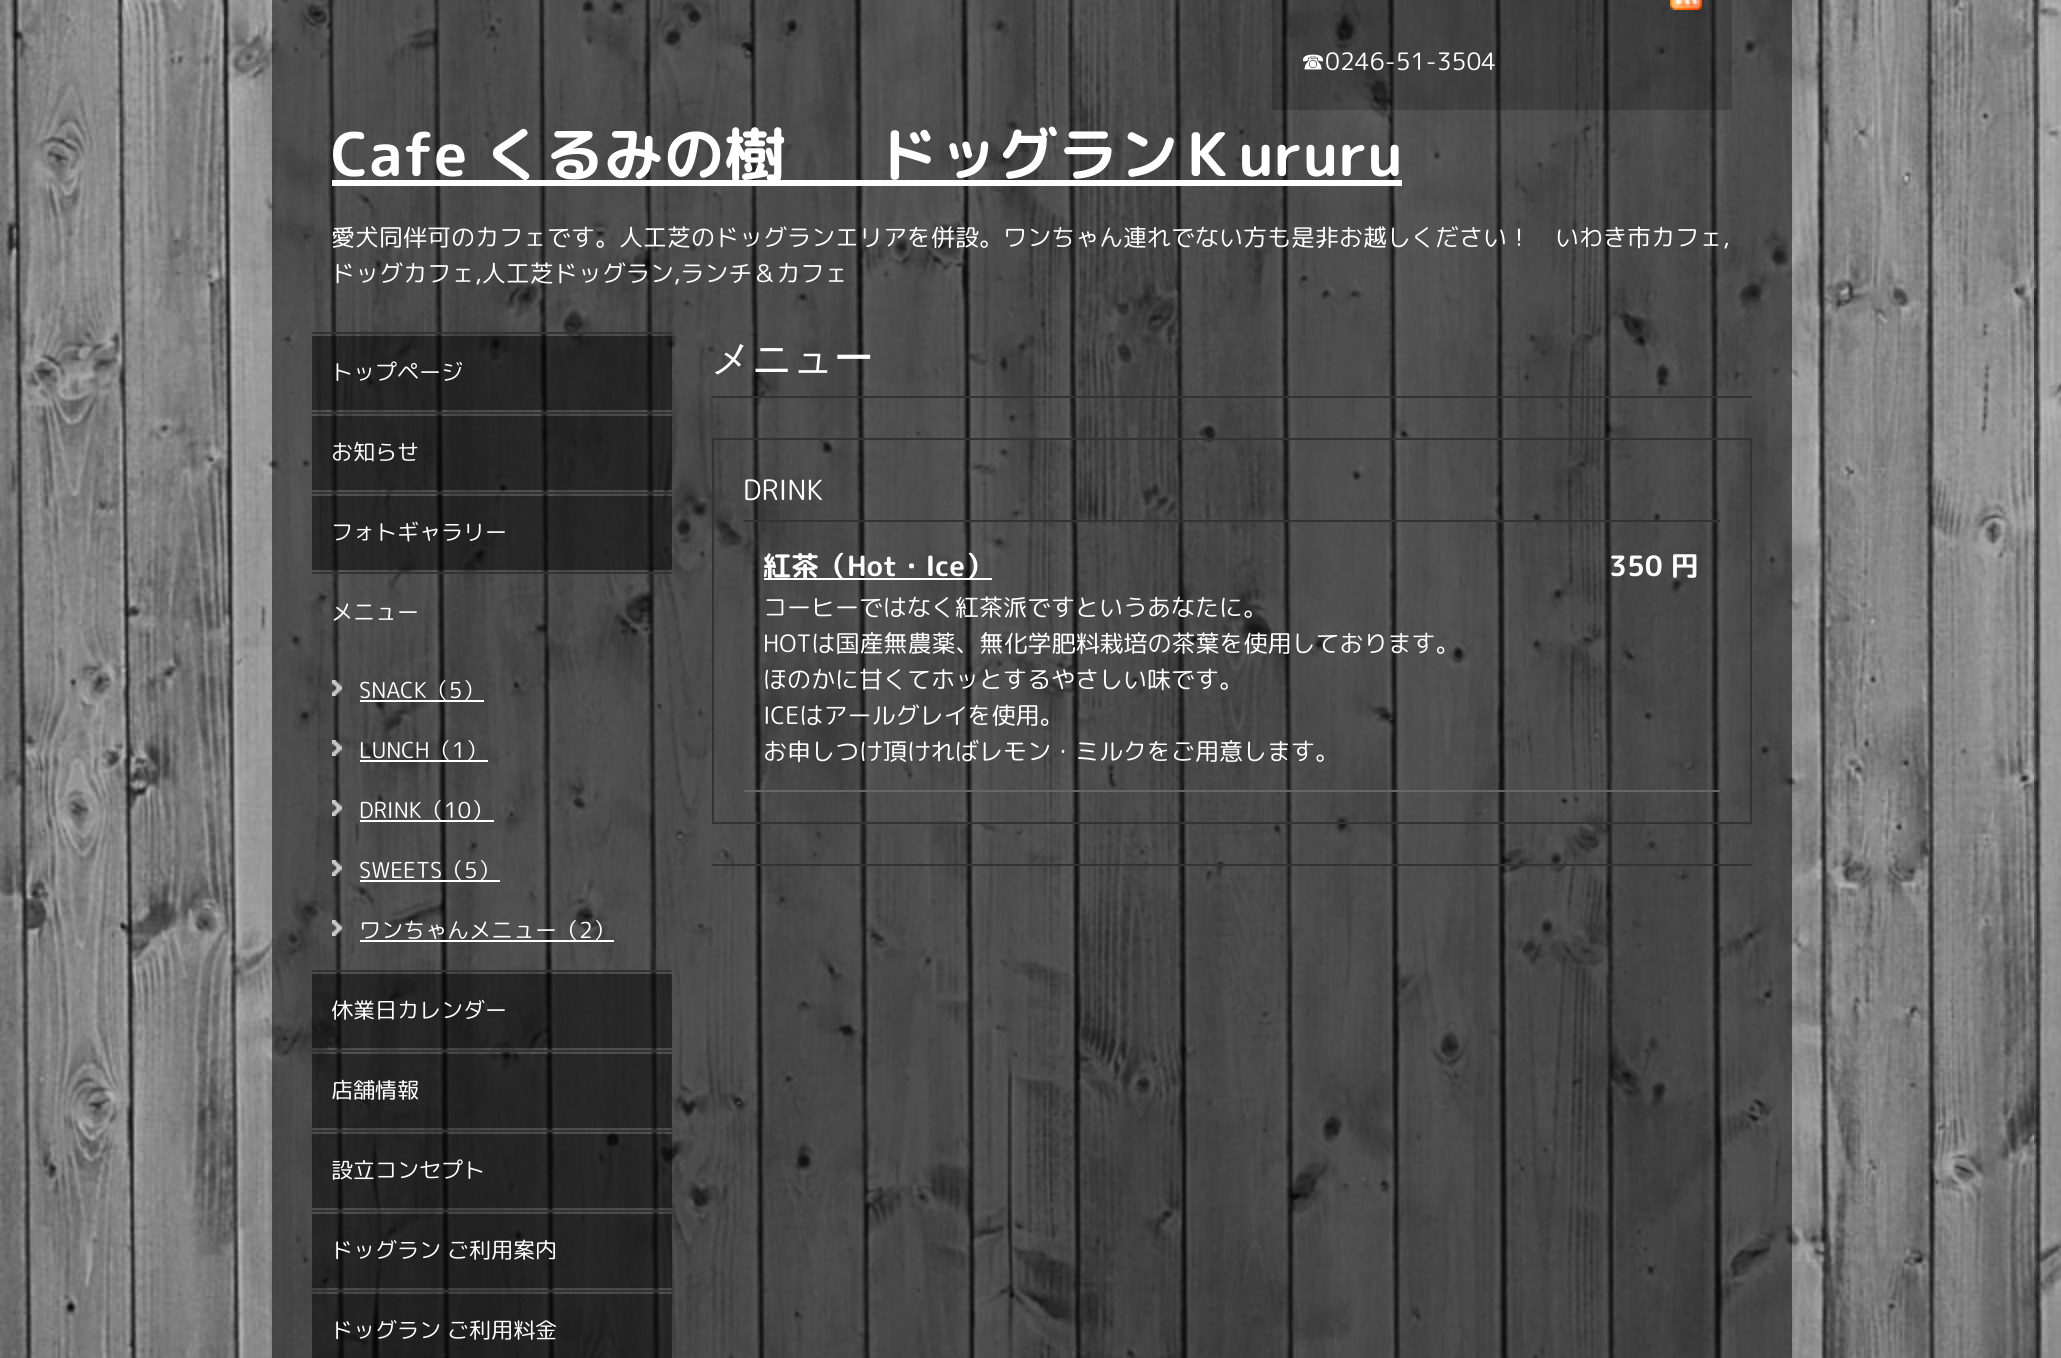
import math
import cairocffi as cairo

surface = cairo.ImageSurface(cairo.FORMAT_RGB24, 2061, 1358)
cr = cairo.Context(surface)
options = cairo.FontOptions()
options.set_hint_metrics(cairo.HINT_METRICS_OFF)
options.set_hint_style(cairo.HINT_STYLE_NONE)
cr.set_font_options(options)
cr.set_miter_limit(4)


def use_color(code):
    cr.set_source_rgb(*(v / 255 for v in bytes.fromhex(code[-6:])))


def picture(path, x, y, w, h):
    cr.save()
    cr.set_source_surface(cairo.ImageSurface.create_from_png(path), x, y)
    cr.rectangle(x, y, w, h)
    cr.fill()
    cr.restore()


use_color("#ffffff")
cr.paint()
picture("img1.png", 0, 0, 2061, 1358)
cr.set_source_rgba(0, 0, 0, 0.5)
cr.rectangle(272, 0, 1520, 1358)
cr.fill()
cr.set_source_rgba(0, 0, 0, 0.2)
cr.rectangle(1272, 0, 460, 110)
cr.fill()
picture("img2.png", 1670, 0, 32, 10)
cr.select_font_face("WenQuanYi Zen Hei Medium")
cr.set_font_size(24)
use_color("#ffffff")
cr.move_to(1301, 70)
cr.show_text("☎")
cr.select_font_face("Rounded Mplus 1c")
cr.move_to(1325, 70)
cr.show_text("0246-51-3504")
cr.rectangle(332, 180, 1070, 6)
cr.fill()
cr.select_font_face("Rounded Mplus 1c Bold", cairo.FONT_SLANT_NORMAL, cairo.FONT_WEIGHT_BOLD)
cr.set_font_size(60)
cr.move_to(331, 176)
cr.show_text("Cafe くるみの樹 　 ドッグランＫururu")
cr.select_font_face("Rounded Mplus 1c")
cr.set_font_size(24)
cr.move_to(331, 246)
cr.show_text("愛犬同伴可のカフェです。人工芝のドッグランエリアを併設。ワンちゃん連れでない方も是非お越しください！　いわき市カフェ,")
cr.move_to(331, 282)
cr.show_text("ドッグカフェ,人工芝ドッグラン,ランチ＆カフェ")
use_color("#333333")
cr.rectangle(312, 332, 360, 2)
cr.fill()
cr.rectangle(312, 412, 360, 2)
cr.fill()
cr.set_source_rgba(0, 0, 0, 0.5)
cr.rectangle(312, 336, 360, 74)
cr.fill()
cr.set_font_size(22)
use_color("#ffffff")
cr.move_to(331, 380)
cr.show_text("トップページ")
use_color("#333333")
cr.rectangle(312, 492, 360, 2)
cr.fill()
cr.set_source_rgba(0, 0, 0, 0.5)
cr.rectangle(312, 416, 360, 74)
cr.fill()
use_color("#ffffff")
cr.move_to(331, 460)
cr.show_text("お知らせ")
use_color("#333333")
cr.rectangle(312, 572, 360, 2)
cr.fill()
cr.set_source_rgba(0, 0, 0, 0.5)
cr.rectangle(312, 496, 360, 74)
cr.fill()
use_color("#ffffff")
cr.move_to(331, 540)
cr.show_text("フォトギャラリー")
use_color("#333333")
cr.rectangle(312, 970, 360, 2)
cr.fill()
use_color("#ffffff")
cr.move_to(331, 620)
cr.show_text("メニュー")
picture("img3.png", 332, 680, 10, 16)
cr.rectangle(360, 700, 124, 2)
cr.fill()
cr.move_to(359, 698)
cr.show_text("SNACK（5）")
picture("img4.png", 332, 740, 10, 16)
cr.rectangle(360, 760, 128, 2)
cr.fill()
cr.move_to(359, 758)
cr.show_text("LUNCH（1）")
picture("img5.png", 332, 800, 10, 16)
cr.rectangle(360, 820, 134, 2)
cr.fill()
cr.move_to(359, 818)
cr.show_text("DRINK（10）")
picture("img6.png", 332, 860, 10, 16)
cr.rectangle(360, 880, 140, 2)
cr.fill()
cr.move_to(359, 878)
cr.show_text("SWEETS（5）")
picture("img7.png", 332, 920, 10, 16)
cr.rectangle(360, 940, 254, 2)
cr.fill()
cr.move_to(359, 938)
cr.show_text("ワンちゃんメニュー（2）")
use_color("#333333")
cr.rectangle(312, 1050, 360, 2)
cr.fill()
cr.set_source_rgba(0, 0, 0, 0.5)
cr.rectangle(312, 974, 360, 74)
cr.fill()
use_color("#ffffff")
cr.move_to(331, 1018)
cr.show_text("休業日カレンダー")
use_color("#333333")
cr.rectangle(312, 1130, 360, 2)
cr.fill()
cr.set_source_rgba(0, 0, 0, 0.5)
cr.rectangle(312, 1054, 360, 74)
cr.fill()
use_color("#ffffff")
cr.move_to(331, 1098)
cr.show_text("店舗情報")
use_color("#333333")
cr.rectangle(312, 1210, 360, 2)
cr.fill()
cr.set_source_rgba(0, 0, 0, 0.5)
cr.rectangle(312, 1134, 360, 74)
cr.fill()
use_color("#ffffff")
cr.move_to(331, 1178)
cr.show_text("設立コンセプト")
use_color("#333333")
cr.rectangle(312, 1290, 360, 2)
cr.fill()
cr.set_source_rgba(0, 0, 0, 0.5)
cr.rectangle(312, 1214, 360, 74)
cr.fill()
use_color("#ffffff")
cr.move_to(331, 1258)
cr.show_text("ドッグラン ご利用案内")
cr.set_source_rgba(0, 0, 0, 0.5)
cr.rectangle(312, 1294, 360, 64)
cr.fill()
use_color("#ffffff")
cr.move_to(331, 1338)
cr.show_text("ドッグラン ご利用料金")
use_color("#333333")
cr.rectangle(712, 396, 1040, 2)
cr.fill()
cr.select_font_face("WenQuanYi Zen Hei Medium")
cr.set_font_size(40)
use_color("#ffffff")
cr.move_to(711, 372)
cr.show_text("メニュー")
use_color("#333333")
cr.rectangle(712, 864, 1040, 2)
cr.fill()
cr.rectangle(713, 439, 1038, 384)
cr.stroke()
cr.rectangle(744, 520, 976, 2)
cr.fill()
cr.select_font_face("Rounded Mplus 1c")
cr.set_font_size(28)
use_color("#ffffff")
cr.move_to(743, 500)
cr.show_text("DRINK")
use_color("#666666")
cr.rectangle(744, 790, 976, 2)
cr.fill()
use_color("#ffffff")
cr.rectangle(764, 578, 228, 2)
cr.fill()
cr.select_font_face("Rounded Mplus 1c Bold", cairo.FONT_SLANT_NORMAL, cairo.FONT_WEIGHT_BOLD)
cr.move_to(763, 576)
cr.show_text("紅茶（Hot・Ice）")
cr.move_to(1609, 576)
cr.show_text("350 円")
cr.select_font_face("Rounded Mplus 1c")
cr.set_font_size(24)
cr.move_to(763, 616)
cr.show_text("コーヒーではなく紅茶派ですというあなたに。")
cr.move_to(763, 652)
cr.show_text("HOTは国産無農薬、無化学肥料栽培の茶葉を使用しております。")
cr.move_to(763, 688)
cr.show_text("ほのかに甘くてホッとするやさしい味です。")
cr.move_to(763, 724)
cr.show_text("ICEはアールグレイを使用。")
cr.move_to(763, 760)
cr.show_text("お申しつけ頂ければレモン・ミルクをご用意します。")
surface.write_to_png("result.png")
